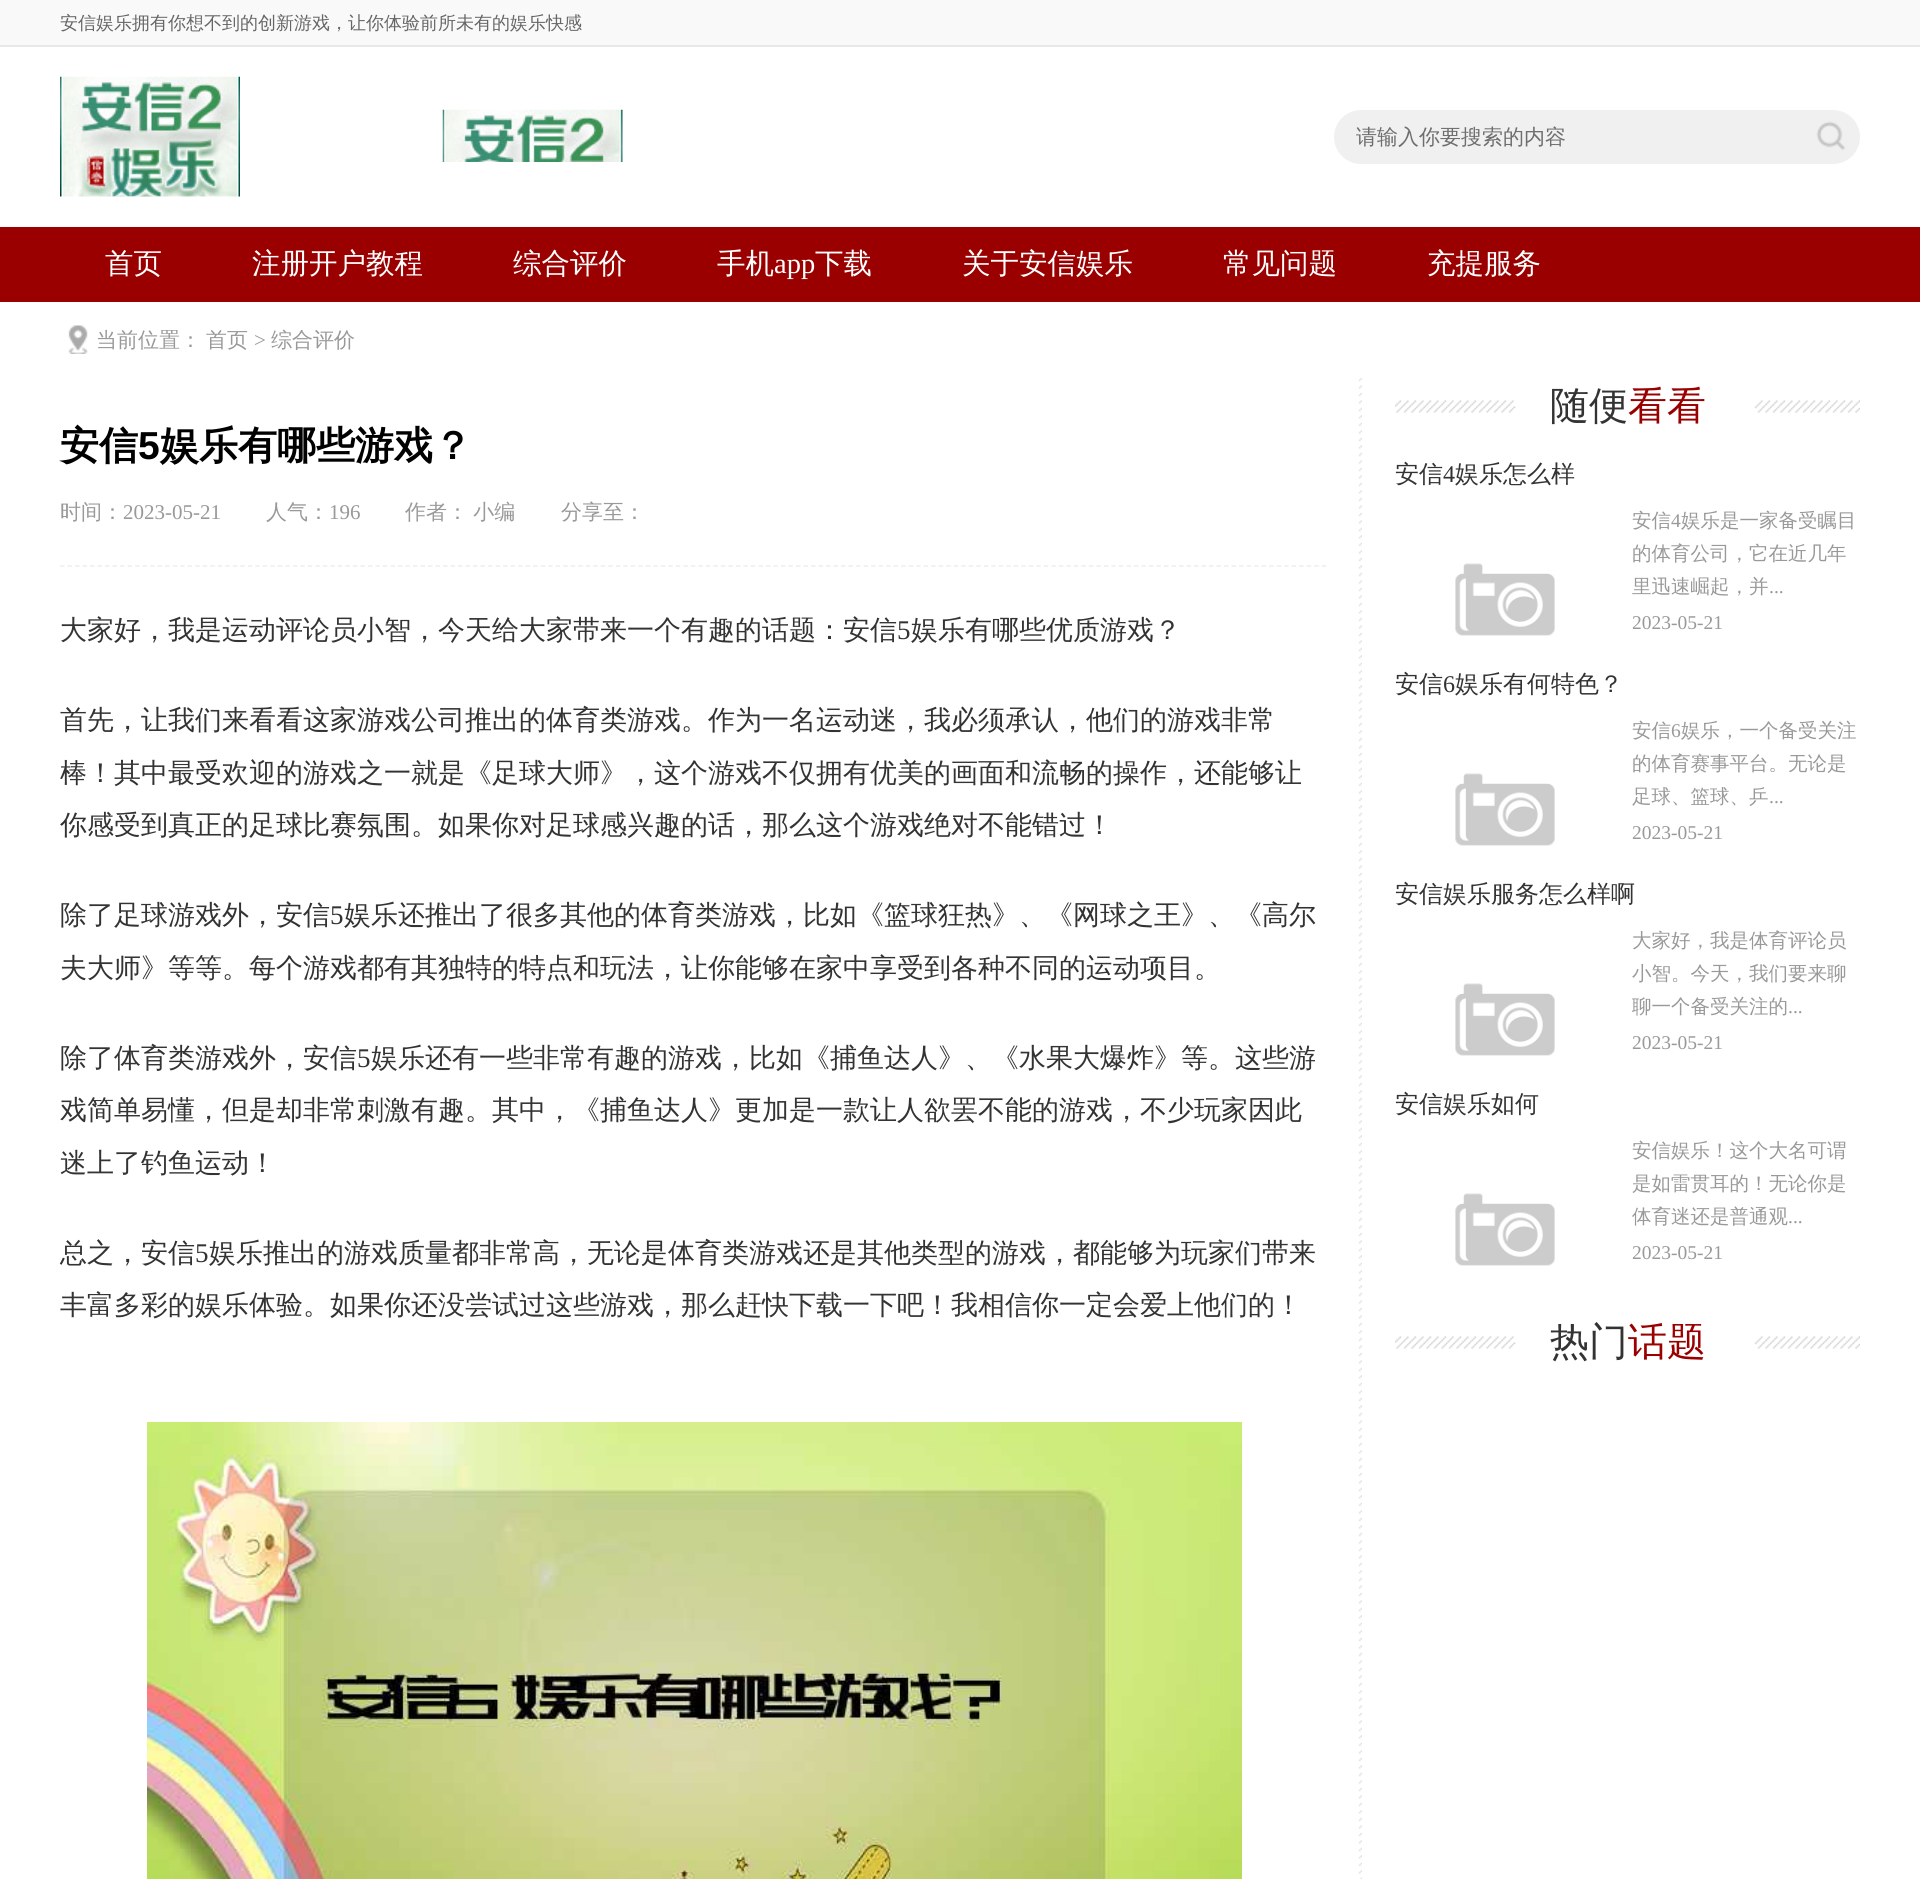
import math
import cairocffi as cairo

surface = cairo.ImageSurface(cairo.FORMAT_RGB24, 1920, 1879)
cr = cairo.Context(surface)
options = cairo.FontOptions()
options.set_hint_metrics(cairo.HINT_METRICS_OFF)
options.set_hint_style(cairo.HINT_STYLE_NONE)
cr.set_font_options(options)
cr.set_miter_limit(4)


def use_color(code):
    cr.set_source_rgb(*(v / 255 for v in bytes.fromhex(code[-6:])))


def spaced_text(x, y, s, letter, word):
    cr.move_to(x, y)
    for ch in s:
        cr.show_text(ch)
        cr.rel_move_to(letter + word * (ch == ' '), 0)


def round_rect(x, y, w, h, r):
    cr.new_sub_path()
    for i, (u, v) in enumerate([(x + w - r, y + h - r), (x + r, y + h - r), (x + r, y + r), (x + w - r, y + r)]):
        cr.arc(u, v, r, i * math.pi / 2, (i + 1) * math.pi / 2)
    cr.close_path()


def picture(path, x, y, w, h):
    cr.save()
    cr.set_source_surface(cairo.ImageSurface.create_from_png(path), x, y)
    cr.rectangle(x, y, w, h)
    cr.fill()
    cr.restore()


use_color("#ffffff")
cr.paint()
use_color("#f9f9f9")
cr.rectangle(0, 0, 1920, 45)
cr.fill()
use_color("#e8e8e8")
cr.rectangle(0, 45, 1920, 2)
cr.fill()
cr.select_font_face("WenQuanYi Zen Hei Medium")
cr.set_font_size(18)
use_color("#666666")
cr.move_to(60, 29)
cr.show_text("安信娱乐拥有你想不到的创新游戏，让你体验前所未有的娱乐快感")
picture("img1.png", 60, 76, 180, 121)
picture("img2.png", 442, 109, 181, 53)
use_color("#f0f0f1")
round_rect(1334, 110, 526, 54, 27)
cr.fill()
cr.set_font_size(21)
use_color("#6e6e6f")
cr.move_to(1356, 144)
cr.show_text("请输入你要搜索的内容")
picture("img3.png", 1816, 121, 43, 29)
use_color("#9a0000")
cr.rectangle(0, 227, 1920, 75)
cr.fill()
cr.set_font_size(28.5)
use_color("#ffffff")
cr.move_to(105, 273)
cr.show_text("首页")
cr.move_to(252, 273)
cr.show_text("注册开户教程")
cr.move_to(513, 273)
cr.show_text("综合评价")
cr.move_to(717, 273)
cr.show_text("手机")
cr.select_font_face("Liberation Serif")
cr.move_to(774, 273)
cr.show_text("app")
cr.select_font_face("WenQuanYi Zen Hei Medium")
cr.move_to(815, 273)
cr.show_text("下载")
cr.move_to(962, 273)
cr.show_text("关于安信娱乐")
cr.move_to(1223, 273)
cr.show_text("常见问题")
cr.move_to(1427, 273)
cr.show_text("充提服务")
picture("img4.png", 68, 325, 20, 29)
cr.set_font_size(21)
use_color("#999999")
cr.move_to(96, 347)
cr.show_text("当前位置：")
cr.move_to(206, 347)
cr.show_text("首页")
cr.select_font_face("Liberation Serif")
cr.move_to(254, 347)
cr.show_text(">")
cr.select_font_face("WenQuanYi Zen Hei Medium")
cr.move_to(271, 347)
cr.show_text("综合评价")
picture("img5.png", 1358, 378, 4, 1501)
cr.select_font_face("WenQuanYi Zen Hei", cairo.FONT_SLANT_NORMAL, cairo.FONT_WEIGHT_BOLD)
cr.set_font_size(39)
use_color("#000000")
cr.move_to(60, 459)
cr.show_text("安信")
cr.select_font_face("Liberation Sans", cairo.FONT_SLANT_NORMAL, cairo.FONT_WEIGHT_BOLD)
cr.move_to(138, 459)
cr.show_text("5")
cr.select_font_face("WenQuanYi Zen Hei", cairo.FONT_SLANT_NORMAL, cairo.FONT_WEIGHT_BOLD)
cr.move_to(160, 459)
cr.show_text("娱乐有哪些游戏？")
cr.new_path()
cr.move_to(60, 566)
cr.line_to(1327.5, 566)
use_color("#eeeeee")
cr.set_line_width(1.5)
cr.set_dash([4.5, 3.01])
cr.stroke()
cr.select_font_face("WenQuanYi Zen Hei Medium")
cr.set_font_size(21)
use_color("#999999")
cr.move_to(60, 519)
cr.show_text("时间：")
cr.select_font_face("Liberation Serif")
cr.move_to(123, 519)
cr.show_text("2023-05-21")
cr.select_font_face("WenQuanYi Zen Hei Medium")
cr.move_to(266, 519)
cr.show_text("人气：")
cr.select_font_face("Liberation Serif")
cr.move_to(329, 519)
cr.show_text("196")
cr.select_font_face("WenQuanYi Zen Hei Medium")
spaced_text(405, 519, "作者： 小编", 0, -1)
cr.move_to(561, 519)
cr.show_text("分享至：")
cr.set_font_size(27)
use_color("#333333")
cr.move_to(60, 639)
cr.show_text("大家好，我是运动评论员小智，今天给大家带来一个有趣的话题：安信")
cr.select_font_face("Liberation Serif")
cr.move_to(897, 639)
cr.show_text("5")
cr.select_font_face("WenQuanYi Zen Hei Medium")
cr.move_to(911, 639)
cr.show_text("娱乐有哪些优质游戏？")
cr.move_to(60, 729)
cr.show_text("首先，让我们来看看这家游戏公司推出的体育类游戏。作为一名运动迷，我必须承认，他们的游戏非常")
cr.move_to(60, 782)
cr.show_text("棒！其中最受欢迎的游戏之一就是《足球大师》，这个游戏不仅拥有优美的画面和流畅的操作，还能够让")
cr.move_to(60, 834)
cr.show_text("你感受到真正的足球比赛氛围。如果你对足球感兴趣的话，那么这个游戏绝对不能错过！")
cr.move_to(60, 924)
cr.show_text("除了足球游戏外，安信")
cr.select_font_face("Liberation Serif")
cr.move_to(330, 924)
cr.show_text("5")
cr.select_font_face("WenQuanYi Zen Hei Medium")
cr.move_to(344, 924)
cr.show_text("娱乐还推出了很多其他的体育类游戏，比如《篮球狂热》、《网球之王》、《高尔")
cr.move_to(60, 977)
cr.show_text("夫大师》等等。每个游戏都有其独特的特点和玩法，让你能够在家中享受到各种不同的运动项目。")
cr.move_to(60, 1067)
cr.show_text("除了体育类游戏外，安信")
cr.select_font_face("Liberation Serif")
cr.move_to(357, 1067)
cr.show_text("5")
cr.select_font_face("WenQuanYi Zen Hei Medium")
cr.move_to(371, 1067)
cr.show_text("娱乐还有一些非常有趣的游戏，比如《捕鱼达人》、《水果大爆炸》等。这些游")
cr.move_to(60, 1119)
cr.show_text("戏简单易懂，但是却非常刺激有趣。其中，《捕鱼达人》更加是一款让人欲罢不能的游戏，不少玩家因此")
cr.move_to(60, 1172)
cr.show_text("迷上了钓鱼运动！")
cr.move_to(60, 1262)
cr.show_text("总之，安信")
cr.select_font_face("Liberation Serif")
cr.move_to(195, 1262)
cr.show_text("5")
cr.select_font_face("WenQuanYi Zen Hei Medium")
cr.move_to(209, 1262)
cr.show_text("娱乐推出的游戏质量都非常高，无论是体育类游戏还是其他类型的游戏，都能够为玩家们带来")
cr.move_to(60, 1314)
cr.show_text("丰富多彩的娱乐体验。如果你还没尝试过这些游戏，那么赶快下载一下吧！我相信你一定会爱上他们的！")
picture("img6.png", 147, 1422, 1095, 457)
picture("img7.png", 1395, 400, 465, 13)
cr.set_font_size(39)
cr.move_to(1550, 419)
cr.show_text("随便")
use_color("#9a0000")
cr.move_to(1628, 419)
cr.show_text("看看")
cr.set_font_size(24)
use_color("#333333")
cr.move_to(1395, 482)
cr.show_text("安信")
cr.select_font_face("Liberation Serif")
cr.move_to(1443, 482)
cr.show_text("4")
cr.select_font_face("WenQuanYi Zen Hei Medium")
cr.move_to(1455, 482)
cr.show_text("娱乐怎么样")
picture("img8.png", 1455, 563, 100, 73)
cr.set_font_size(19.5)
use_color("#999999")
cr.move_to(1632, 527)
cr.show_text("安信")
cr.select_font_face("Liberation Serif")
cr.move_to(1671, 527)
cr.show_text("4")
cr.select_font_face("WenQuanYi Zen Hei Medium")
cr.move_to(1681, 527)
cr.show_text("娱乐是一家备受瞩目")
cr.move_to(1632, 560)
cr.show_text("的体育公司，它在近几年")
cr.move_to(1632, 593)
cr.show_text("里迅速崛起，并")
cr.select_font_face("Liberation Serif")
cr.move_to(1769, 593)
cr.show_text("...")
cr.move_to(1632, 629)
cr.show_text("2023-05-21")
cr.select_font_face("WenQuanYi Zen Hei Medium")
cr.set_font_size(24)
use_color("#333333")
cr.move_to(1395, 692)
cr.show_text("安信")
cr.select_font_face("Liberation Serif")
cr.move_to(1443, 692)
cr.show_text("6")
cr.select_font_face("WenQuanYi Zen Hei Medium")
cr.move_to(1455, 692)
cr.show_text("娱乐有何特色？")
picture("img8.png", 1455, 773, 100, 73)
cr.set_font_size(19.5)
use_color("#999999")
cr.move_to(1632, 737)
cr.show_text("安信")
cr.select_font_face("Liberation Serif")
cr.move_to(1671, 737)
cr.show_text("6")
cr.select_font_face("WenQuanYi Zen Hei Medium")
cr.move_to(1681, 737)
cr.show_text("娱乐，一个备受关注")
cr.move_to(1632, 770)
cr.show_text("的体育赛事平台。无论是")
cr.move_to(1632, 803)
cr.show_text("足球、篮球、乒")
cr.select_font_face("Liberation Serif")
cr.move_to(1769, 803)
cr.show_text("...")
cr.move_to(1632, 839)
cr.show_text("2023-05-21")
cr.select_font_face("WenQuanYi Zen Hei Medium")
cr.set_font_size(24)
use_color("#333333")
cr.move_to(1395, 902)
cr.show_text("安信娱乐服务怎么样啊")
picture("img8.png", 1455, 983, 100, 73)
cr.set_font_size(19.5)
use_color("#999999")
cr.move_to(1632, 947)
cr.show_text("大家好，我是体育评论员")
cr.move_to(1632, 980)
cr.show_text("小智。今天，我们要来聊")
cr.move_to(1632, 1013)
cr.show_text("聊一个备受关注的")
cr.select_font_face("Liberation Serif")
cr.move_to(1788, 1013)
cr.show_text("...")
cr.move_to(1632, 1049)
cr.show_text("2023-05-21")
cr.select_font_face("WenQuanYi Zen Hei Medium")
cr.set_font_size(24)
use_color("#333333")
cr.move_to(1395, 1112)
cr.show_text("安信娱乐如何")
picture("img8.png", 1455, 1193, 100, 73)
cr.set_font_size(19.5)
use_color("#999999")
cr.move_to(1632, 1157)
cr.show_text("安信娱乐！这个大名可谓")
cr.move_to(1632, 1190)
cr.show_text("是如雷贯耳的！无论你是")
cr.move_to(1632, 1223)
cr.show_text("体育迷还是普通观")
cr.select_font_face("Liberation Serif")
cr.move_to(1788, 1223)
cr.show_text("...")
cr.move_to(1632, 1259)
cr.show_text("2023-05-21")
picture("img7.png", 1395, 1336, 465, 13)
cr.select_font_face("WenQuanYi Zen Hei Medium")
cr.set_font_size(39)
use_color("#333333")
cr.move_to(1550, 1355)
cr.show_text("热门")
use_color("#9a0000")
cr.move_to(1628, 1355)
cr.show_text("话题")
surface.write_to_png("result.png")
